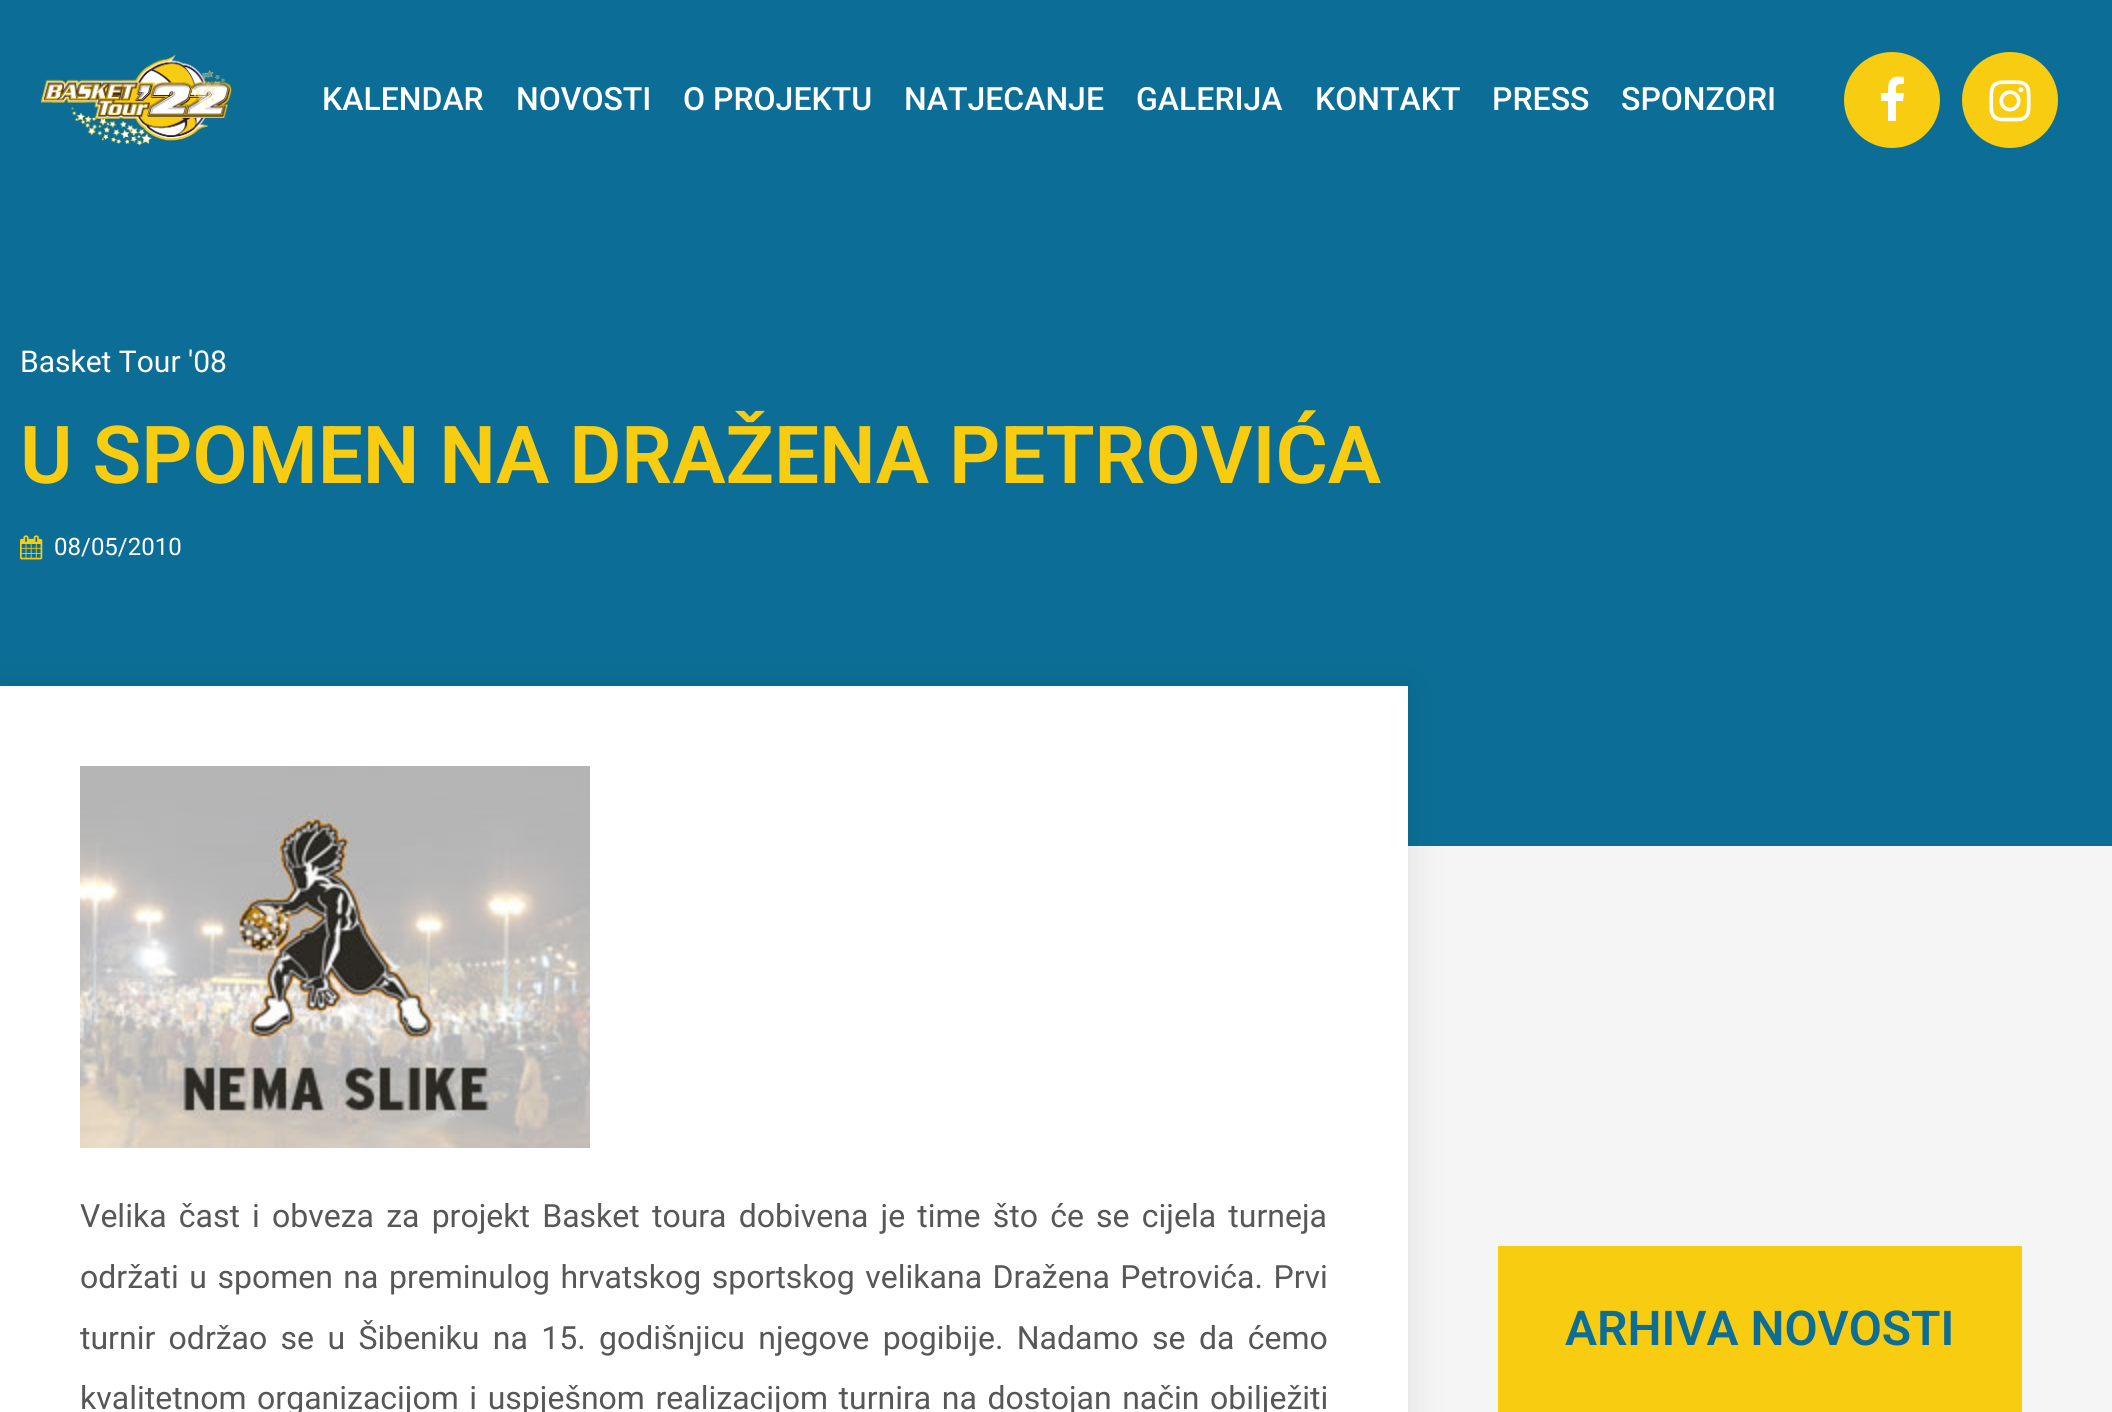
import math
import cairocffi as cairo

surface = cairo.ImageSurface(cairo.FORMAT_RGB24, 2112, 1412)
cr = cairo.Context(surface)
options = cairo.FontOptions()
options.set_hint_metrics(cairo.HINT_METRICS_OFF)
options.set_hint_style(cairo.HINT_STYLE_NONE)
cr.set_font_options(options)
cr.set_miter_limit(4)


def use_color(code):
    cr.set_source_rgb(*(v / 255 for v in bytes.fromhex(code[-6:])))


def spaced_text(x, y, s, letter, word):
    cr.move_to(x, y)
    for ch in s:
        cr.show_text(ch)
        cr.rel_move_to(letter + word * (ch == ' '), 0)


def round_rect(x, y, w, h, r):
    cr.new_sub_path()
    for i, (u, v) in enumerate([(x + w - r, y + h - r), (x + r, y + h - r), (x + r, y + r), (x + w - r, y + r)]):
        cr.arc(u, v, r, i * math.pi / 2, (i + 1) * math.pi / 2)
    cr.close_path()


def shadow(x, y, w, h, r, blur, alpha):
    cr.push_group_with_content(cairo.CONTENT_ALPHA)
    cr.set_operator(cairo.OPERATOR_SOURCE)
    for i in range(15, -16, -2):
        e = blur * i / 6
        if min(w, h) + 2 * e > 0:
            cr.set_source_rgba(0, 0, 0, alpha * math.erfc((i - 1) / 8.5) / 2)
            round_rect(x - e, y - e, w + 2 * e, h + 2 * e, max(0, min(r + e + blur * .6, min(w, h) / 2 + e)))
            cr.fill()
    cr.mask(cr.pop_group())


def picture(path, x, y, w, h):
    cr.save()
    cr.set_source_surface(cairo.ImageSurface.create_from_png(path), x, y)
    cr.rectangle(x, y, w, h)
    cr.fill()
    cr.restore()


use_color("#f5f5f5")
cr.paint()
use_color("#0c6e96")
cr.rectangle(0, 0, 2112, 846)
cr.fill()
picture("img1.png", 40, 54, 192, 92)
cr.select_font_face("Roboto Medium")
cr.set_font_size(32)
use_color("#ffffff")
cr.move_to(322, 110)
cr.show_text("KALENDAR")
cr.move_to(516, 110)
cr.show_text("NOVOSTI")
cr.move_to(683, 110)
cr.show_text("O PROJEKTU")
cr.move_to(904, 110)
cr.show_text("NATJECANJE")
cr.move_to(1136, 110)
cr.show_text("GALERIJA")
cr.move_to(1315, 110)
cr.show_text("KONTAKT")
cr.move_to(1492, 110)
cr.show_text("PRESS")
cr.move_to(1621, 110)
cr.show_text("SPONZORI")
use_color("#f7cc11")
cr.new_path()
cr.arc(1892, 100, 48, 0, 2 * math.pi)
cr.fill()
use_color("#ffffff")
cr.new_path()
cr.move_to(1904, 77)
cr.line_to(1904, 84)
cr.curve_to(1895, 84, 1896, 85, 1896, 93)
cr.line_to(1904, 93)
cr.line_to(1903, 101)
cr.line_to(1896, 101)
cr.line_to(1896, 121)
cr.line_to(1888, 121)
cr.line_to(1888, 101)
cr.line_to(1881, 101)
cr.line_to(1881, 93)
cr.line_to(1888, 93)
cr.curve_to(1888, 80, 1890, 75, 1904, 77)
cr.close_path()
cr.fill()
use_color("#f7cc11")
cr.arc(2010, 100, 48, 0, 2 * math.pi)
cr.fill()
picture("img2.png", 1989, 80, 42, 42)
cr.select_font_face("Roboto")
cr.set_font_size(30)
use_color("#ffffff")
cr.move_to(20, 372)
cr.show_text("Basket Tour '08")
cr.select_font_face("Roboto SemiBold")
cr.set_font_size(80)
use_color("#f7cc11")
cr.move_to(20, 483)
cr.show_text("U SPOMEN NA DRAŽENA PETROVIĆA")
picture("img3.png", 20, 535, 23, 25)
cr.select_font_face("Roboto")
cr.set_font_size(24)
use_color("#ffffff")
cr.move_to(54, 555)
cr.show_text("08/05/2010")
use_color("#000000")
shadow(0, 686, 1408, 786, 0, 20, 0.09)
use_color("#ffffff")
cr.rectangle(0, 686, 1408, 726)
cr.fill()
picture("img4.png", 80, 766, 510, 382)
cr.set_font_size(32)
use_color("#575757")
spaced_text(80, 1227, "Velika čast i obveza za projekt Basket toura dobivena je time što će se cijela turneja", 0, 4.25)
spaced_text(80, 1288, "održati u spomen na preminulog hrvatskog sportskog velikana Dražena Petrovića. Prvi", 0, 2.6)
spaced_text(80, 1349, "turnir održao se u Šibeniku na 15. godišnjicu njegove pogibije. Nadamo se da ćemo", 0, 5.4)
spaced_text(80, 1409, "kvalitetnom organizacijom i uspješnom realizacijom turnira na dostojan način obilježiti", 0, 2.6)
use_color("#f7cc11")
cr.rectangle(1498, 1246, 524, 166)
cr.fill()
cr.select_font_face("Roboto SemiBold")
cr.set_font_size(48)
use_color("#0c6e96")
cr.move_to(1565, 1345)
cr.show_text("ARHIVA NOVOSTI")
surface.write_to_png("result.png")
